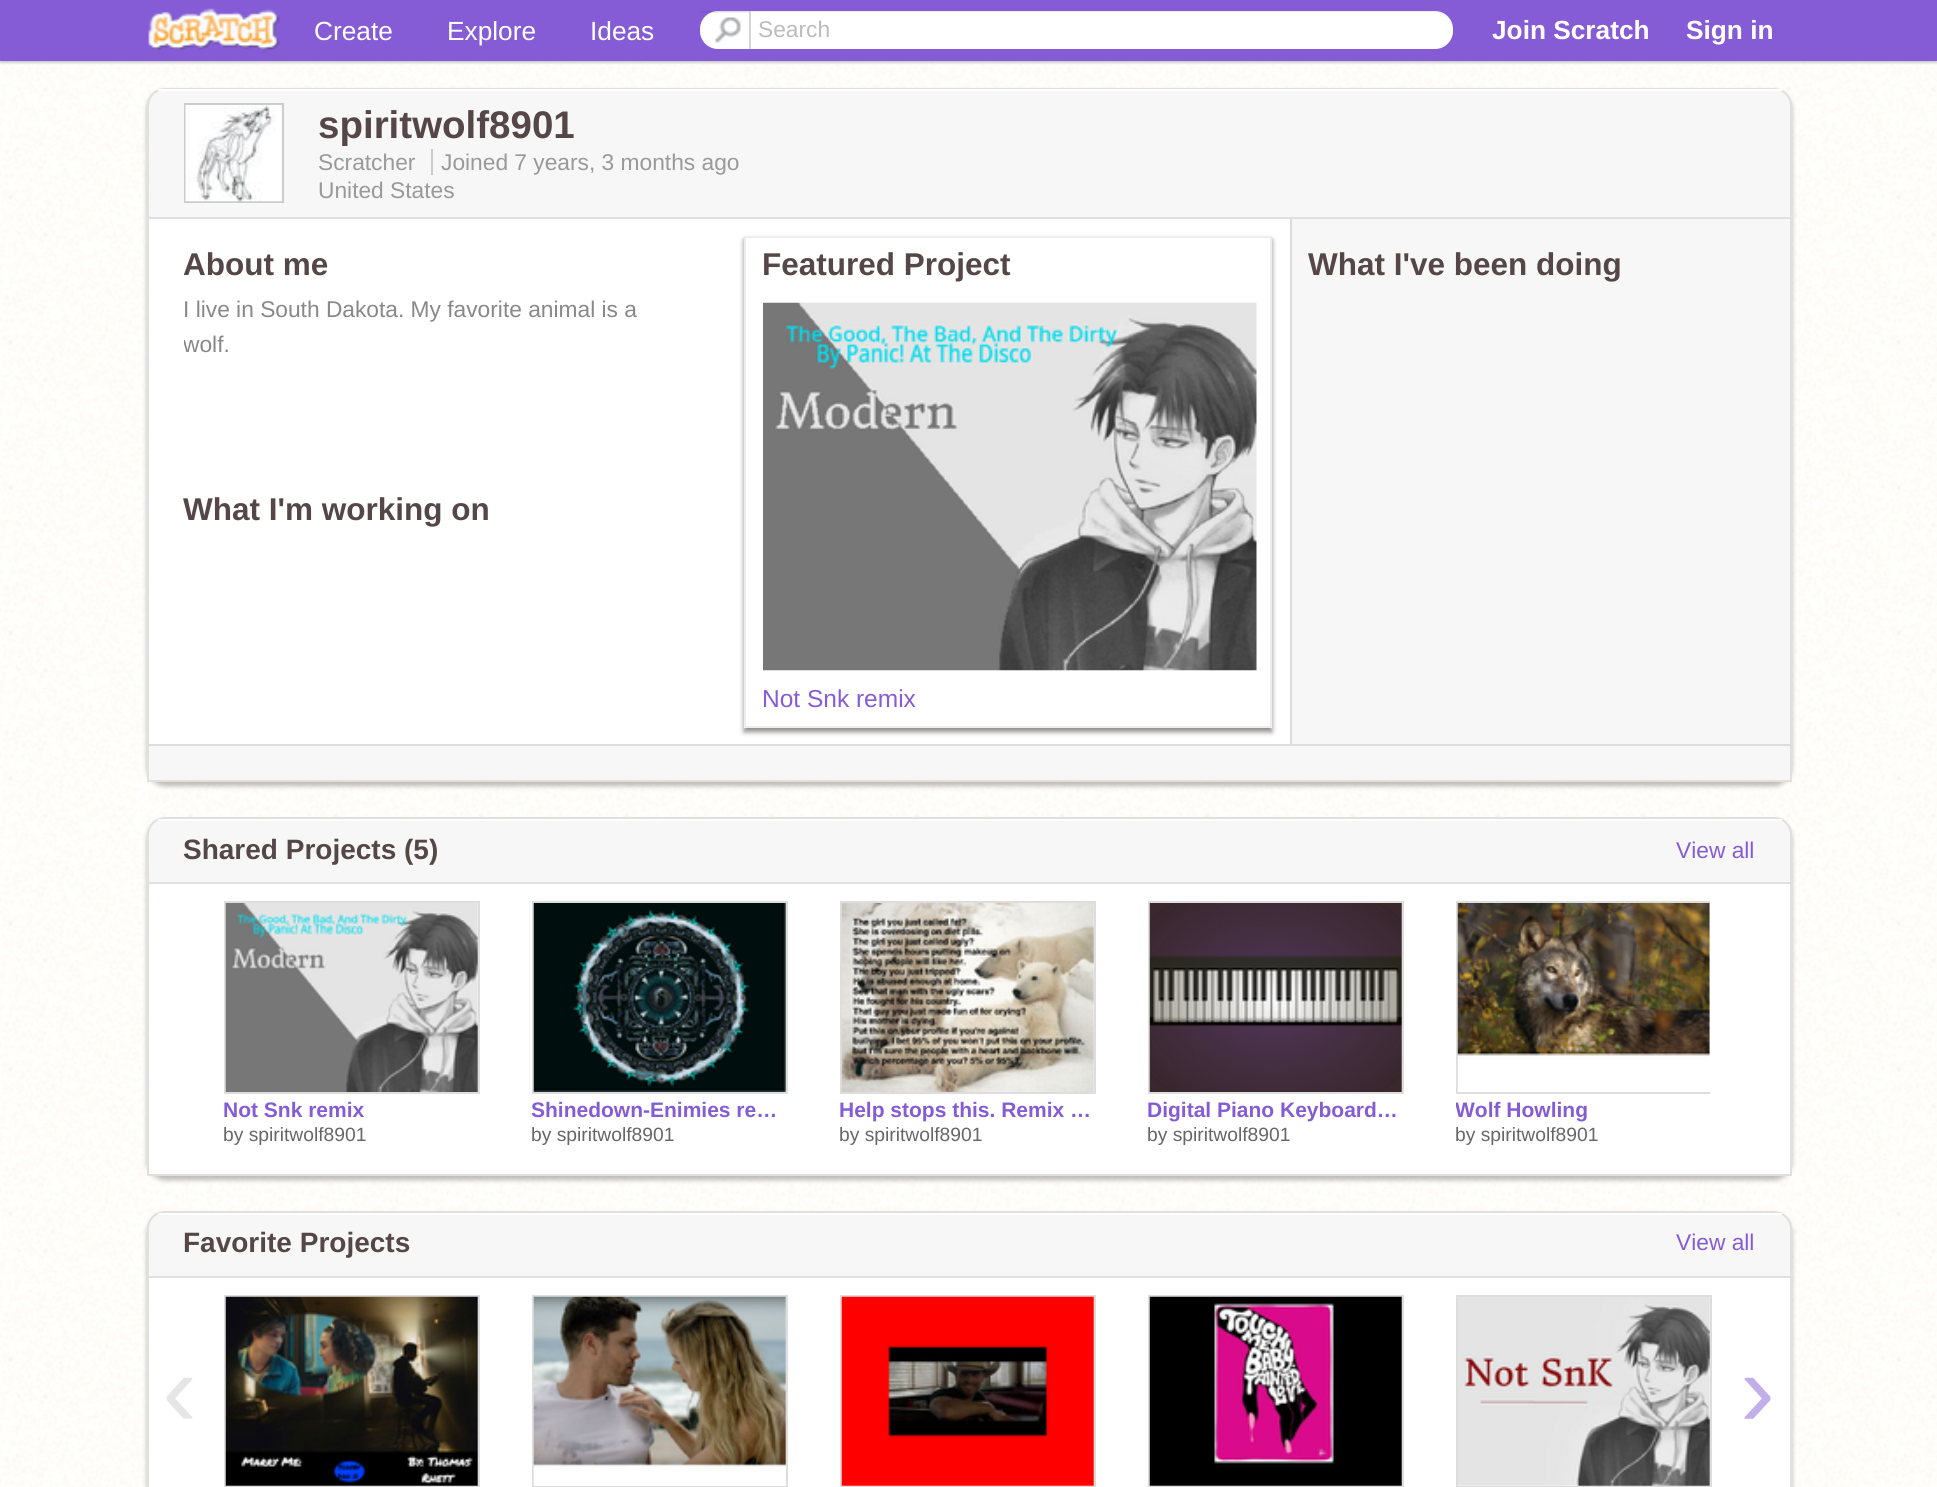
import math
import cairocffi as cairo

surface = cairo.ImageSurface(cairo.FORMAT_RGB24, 1937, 1487)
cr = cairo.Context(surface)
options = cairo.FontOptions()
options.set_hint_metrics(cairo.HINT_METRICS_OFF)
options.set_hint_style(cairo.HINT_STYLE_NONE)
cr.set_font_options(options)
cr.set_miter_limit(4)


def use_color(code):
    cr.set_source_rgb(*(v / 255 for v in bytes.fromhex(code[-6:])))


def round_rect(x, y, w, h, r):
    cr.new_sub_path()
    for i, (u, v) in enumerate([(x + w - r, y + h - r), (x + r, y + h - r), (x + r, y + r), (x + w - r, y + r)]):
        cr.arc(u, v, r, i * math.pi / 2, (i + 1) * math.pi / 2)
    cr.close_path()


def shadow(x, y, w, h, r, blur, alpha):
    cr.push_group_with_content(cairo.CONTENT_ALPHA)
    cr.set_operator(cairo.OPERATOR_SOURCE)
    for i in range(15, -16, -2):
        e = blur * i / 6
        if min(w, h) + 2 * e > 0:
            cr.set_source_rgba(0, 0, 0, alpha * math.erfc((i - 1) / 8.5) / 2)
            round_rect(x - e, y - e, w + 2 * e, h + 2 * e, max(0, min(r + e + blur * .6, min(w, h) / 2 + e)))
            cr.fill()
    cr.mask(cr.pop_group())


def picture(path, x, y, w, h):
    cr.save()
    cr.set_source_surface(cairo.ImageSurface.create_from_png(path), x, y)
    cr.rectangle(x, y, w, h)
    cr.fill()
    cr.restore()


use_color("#ffffff")
cr.paint()
picture("img1.png", 0, 61, 1937, 1426)
use_color("#cccccc")
shadow(0, 2, 1937, 61, 0, 1, 1)
use_color("#855cd6")
cr.rectangle(0, 0, 1937, 61)
cr.fill()
picture("img2.png", 148, 8, 132, 44)
cr.select_font_face("Liberation Sans")
cr.set_font_size(26.25)
use_color("#ffffff")
cr.move_to(314, 40)
cr.show_text("Create")
cr.move_to(447, 40)
cr.show_text("Explore")
cr.move_to(590, 40)
cr.show_text("Ideas")
round_rect(700, 11, 753, 38, 18)
cr.fill()
cr.set_source_rgba(0, 0, 0, 0.07)
cr.new_path()
cr.move_to(718, 12)
cr.line_to(1435, 12)
cr.line_to(1442, 14)
cr.curve_to(1449, 16, 1453, 24, 1453, 31)
cr.line_to(1453, 29)
cr.curve_to(1453, 19, 1445, 11, 1435, 11)
cr.line_to(718, 11)
cr.curve_to(708, 11, 700, 19, 700, 29)
cr.line_to(700, 31)
cr.curve_to(700, 22, 706, 12, 718, 12)
cr.close_path()
cr.fill()
picture("img3.png", 715, 17, 27, 26)
cr.set_source_rgba(0, 0, 0, 0.06)
cr.rectangle(700, 11, 49, 2)
cr.fill()
cr.set_source_rgba(0.8, 0.8, 0.8, 0.8)
cr.rectangle(749, 11, 2, 38)
cr.fill()
cr.set_font_size(22.75)
use_color("#bbbbbb")
cr.move_to(758, 37)
cr.show_text("Search")
cr.select_font_face("Liberation Sans", cairo.FONT_SLANT_NORMAL, cairo.FONT_WEIGHT_BOLD)
cr.set_font_size(26.25)
use_color("#ffffff")
cr.move_to(1492, 39)
cr.show_text("Join Scratch")
cr.move_to(1686, 39)
cr.show_text("Sign in")
use_color("#221919")
shadow(147, 91, 1645, 695, 18, 2.5, 0.3)
use_color("#f7f7f7")
cr.new_path()
cr.move_to(165, 89)
cr.line_to(1774, 89)
cr.curve_to(1783.5, 89, 1791, 96.5, 1791, 106)
cr.line_to(1791, 781)
cr.line_to(148, 781)
cr.line_to(148, 106)
cr.curve_to(148, 96.5, 155.5, 89, 165, 89)
cr.close_path()
cr.fill_preserve()
use_color("#e0e0e0")
cr.stroke()
use_color("#ffffff")
cr.rectangle(158, 89, 1624, 2)
cr.fill()
cr.rectangle(185, 104, 98, 98)
use_color("#cccccc")
cr.stroke()
picture("img4.png", 185, 105, 97, 97)
cr.set_font_size(38.5)
use_color("#554747")
cr.move_to(318, 138)
cr.show_text("spiritwolf8901")
cr.select_font_face("Liberation Sans")
cr.set_font_size(22.75)
use_color("#999999")
cr.move_to(318, 170)
cr.show_text("Scratcher")
use_color("#cccccc")
cr.rectangle(431, 149, 2, 26)
cr.fill()
use_color("#999999")
cr.move_to(441, 170)
cr.show_text("Joined 7 years, 3 months ago")
cr.move_to(318, 198)
cr.show_text("United States")
use_color("#ffffff")
cr.rectangle(149, 219, 1141, 525)
cr.fill()
use_color("#e0e0e0")
cr.rectangle(149, 217, 1641, 2)
cr.fill()
cr.select_font_face("Liberation Sans", cairo.FONT_SLANT_NORMAL, cairo.FONT_WEIGHT_BOLD)
cr.set_font_size(31.5)
use_color("#554747")
cr.move_to(183, 275)
cr.show_text("About me")
cr.select_font_face("Liberation Sans")
cr.set_font_size(22.75)
use_color("#888888")
cr.move_to(183, 317)
cr.show_text("I live in South Dakota. My favorite animal is a")
cr.save()
cr.rectangle(184, 292, 499, 189)
cr.clip()
cr.move_to(183, 352)
cr.show_text("wolf.")
cr.restore()
cr.select_font_face("Liberation Sans", cairo.FONT_SLANT_NORMAL, cairo.FONT_WEIGHT_BOLD)
cr.set_font_size(31.5)
use_color("#554747")
cr.move_to(183, 520)
cr.show_text("What I'm working on")
cr.save()
cr.set_fill_rule(cairo.FILL_RULE_EVEN_ODD)
cr.new_path()
cr.move_to(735, 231)
cr.line_to(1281, 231)
cr.line_to(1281, 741)
cr.line_to(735, 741)
cr.close_path()
cr.move_to(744, 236)
cr.line_to(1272, 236)
cr.line_to(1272, 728)
cr.line_to(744, 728)
cr.close_path()
cr.clip()
use_color("#221919")
shadow(744, 240, 528, 492, 0, 2.5, 0.5)
cr.restore()
cr.rectangle(745, 237, 526, 490)
use_color("#eeeeee")
cr.stroke()
use_color("#554747")
cr.move_to(762, 275)
cr.show_text("Featured Project")
picture("img5.png", 763, 302, 494, 369)
cr.select_font_face("Liberation Sans")
cr.set_font_size(24.5)
use_color("#855cd6")
cr.move_to(762, 707)
cr.show_text("Not Snk remix")
use_color("#dddddd")
cr.rectangle(1290, 219, 2, 525)
cr.fill()
cr.select_font_face("Liberation Sans", cairo.FONT_SLANT_NORMAL, cairo.FONT_WEIGHT_BOLD)
cr.set_font_size(31.5)
use_color("#554747")
cr.move_to(1308, 275)
cr.show_text("What I've been doing")
use_color("#dddddd")
cr.rectangle(149, 744, 1641, 2)
cr.fill()
use_color("#221919")
shadow(147, 821, 1645, 359, 18, 2.5, 0.3)
use_color("#f7f7f7")
cr.new_path()
cr.move_to(165, 818)
cr.line_to(1774, 818)
cr.curve_to(1783.5, 818, 1791, 825.5, 1791, 835)
cr.line_to(1791, 1175)
cr.line_to(148, 1175)
cr.line_to(148, 835)
cr.curve_to(148, 825.5, 155.5, 818, 165, 818)
cr.close_path()
cr.fill_preserve()
use_color("#e0e0e0")
cr.stroke()
use_color("#ffffff")
cr.rectangle(158, 819, 1624, 2)
cr.fill()
cr.set_font_size(28)
use_color("#554747")
cr.move_to(183, 859)
cr.show_text("Shared Projects (5)")
cr.select_font_face("Liberation Sans")
cr.set_font_size(22.75)
use_color("#855cd6")
cr.move_to(1676, 858)
cr.show_text("View all")
use_color("#ffffff")
cr.rectangle(149, 884, 1641, 290)
cr.fill()
use_color("#e0e0e0")
cr.rectangle(149, 882, 1641, 2)
cr.fill()
cr.rectangle(225, 902, 254, 191)
use_color("#dddddd")
cr.stroke()
picture("img6.png", 225, 903, 253, 189)
cr.select_font_face("Liberation Sans", cairo.FONT_SLANT_NORMAL, cairo.FONT_WEIGHT_BOLD)
cr.set_font_size(21)
use_color("#855cd6")
cr.move_to(223, 1117)
cr.show_text("Not Snk remix")
cr.select_font_face("Liberation Sans")
cr.set_font_size(19.25)
use_color("#666666")
cr.move_to(223, 1141)
cr.show_text("by spiritwolf8901")
cr.rectangle(533, 902, 254, 191)
use_color("#dddddd")
cr.stroke()
picture("img7.png", 533, 903, 253, 189)
cr.select_font_face("Liberation Sans", cairo.FONT_SLANT_NORMAL, cairo.FONT_WEIGHT_BOLD)
cr.set_font_size(21)
use_color("#855cd6")
cr.move_to(531, 1117)
cr.show_text("Shinedown-Enimies re…")
cr.select_font_face("Liberation Sans")
cr.set_font_size(19.25)
use_color("#666666")
cr.move_to(531, 1141)
cr.show_text("by spiritwolf8901")
cr.rectangle(841, 902, 254, 191)
use_color("#dddddd")
cr.stroke()
picture("img8.png", 841, 903, 253, 189)
cr.select_font_face("Liberation Sans", cairo.FONT_SLANT_NORMAL, cairo.FONT_WEIGHT_BOLD)
cr.set_font_size(21)
use_color("#855cd6")
cr.move_to(839, 1117)
cr.show_text("Help stops this. Remix …")
cr.select_font_face("Liberation Sans")
cr.set_font_size(19.25)
use_color("#666666")
cr.move_to(839, 1141)
cr.show_text("by spiritwolf8901")
cr.rectangle(1149, 902, 254, 191)
use_color("#dddddd")
cr.stroke()
picture("img9.png", 1149, 903, 253, 189)
cr.select_font_face("Liberation Sans", cairo.FONT_SLANT_NORMAL, cairo.FONT_WEIGHT_BOLD)
cr.set_font_size(21)
use_color("#855cd6")
cr.move_to(1147, 1117)
cr.show_text("Digital Piano Keyboard…")
cr.select_font_face("Liberation Sans")
cr.set_font_size(19.25)
use_color("#666666")
cr.move_to(1147, 1141)
cr.show_text("by spiritwolf8901")
cr.save()
cr.rectangle(224, 901, 1486, 256)
cr.clip()
cr.rectangle(1457, 902, 254, 191)
use_color("#dddddd")
cr.stroke()
cr.restore()
picture("img10.png", 1457, 903, 253, 189)
cr.save()
cr.rectangle(1456, 1097, 254, 25)
cr.clip()
cr.select_font_face("Liberation Sans", cairo.FONT_SLANT_NORMAL, cairo.FONT_WEIGHT_BOLD)
cr.set_font_size(21)
use_color("#855cd6")
cr.move_to(1455, 1117)
cr.show_text("Wolf Howling")
cr.restore()
cr.move_to(1455, 1141)
cr.show_text("by spiritwolf8901")
use_color("#221919")
shadow(147, 1215, 1645, 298, 18, 2.5, 0.3)
use_color("#f7f7f7")
cr.new_path()
cr.move_to(165, 1212)
cr.line_to(1774, 1212)
cr.curve_to(1783.5, 1212, 1791, 1219.5, 1791, 1229)
cr.line_to(1791, 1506)
cr.line_to(148, 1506)
cr.line_to(148, 1229)
cr.curve_to(148, 1219.5, 155.5, 1212, 165, 1212)
cr.close_path()
cr.fill_preserve()
use_color("#e0e0e0")
cr.stroke()
use_color("#ffffff")
cr.rectangle(158, 1213, 1624, 2)
cr.fill()
cr.select_font_face("Liberation Sans", cairo.FONT_SLANT_NORMAL, cairo.FONT_WEIGHT_BOLD)
cr.set_font_size(28)
use_color("#554747")
cr.move_to(183, 1252)
cr.show_text("Favorite Projects")
cr.select_font_face("Liberation Sans")
cr.set_font_size(22.75)
use_color("#855cd6")
cr.move_to(1676, 1250)
cr.show_text("View all")
use_color("#ffffff")
cr.rectangle(149, 1278, 1641, 209)
cr.fill()
use_color("#e0e0e0")
cr.rectangle(149, 1276, 1641, 2)
cr.fill()
cr.set_font_size(105)
use_color("#e6e6e6")
cr.move_to(162, 1426)
cr.show_text("‹")
cr.rectangle(225, 1296, 254, 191)
use_color("#dddddd")
cr.stroke()
picture("img11.png", 225, 1296, 253, 190)
cr.rectangle(533, 1296, 254, 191)
cr.stroke()
picture("img12.png", 533, 1296, 253, 190)
cr.rectangle(841, 1296, 254, 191)
cr.stroke()
picture("img13.png", 841, 1296, 253, 190)
cr.rectangle(1149, 1296, 254, 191)
cr.stroke()
picture("img14.png", 1149, 1296, 253, 190)
cr.rectangle(1457, 1296, 254, 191)
cr.stroke()
picture("img15.png", 1458, 1297, 252, 189)
use_color("#c2aeeb")
cr.move_to(1740, 1426)
cr.show_text("›")
surface.write_to_png("result.png")
